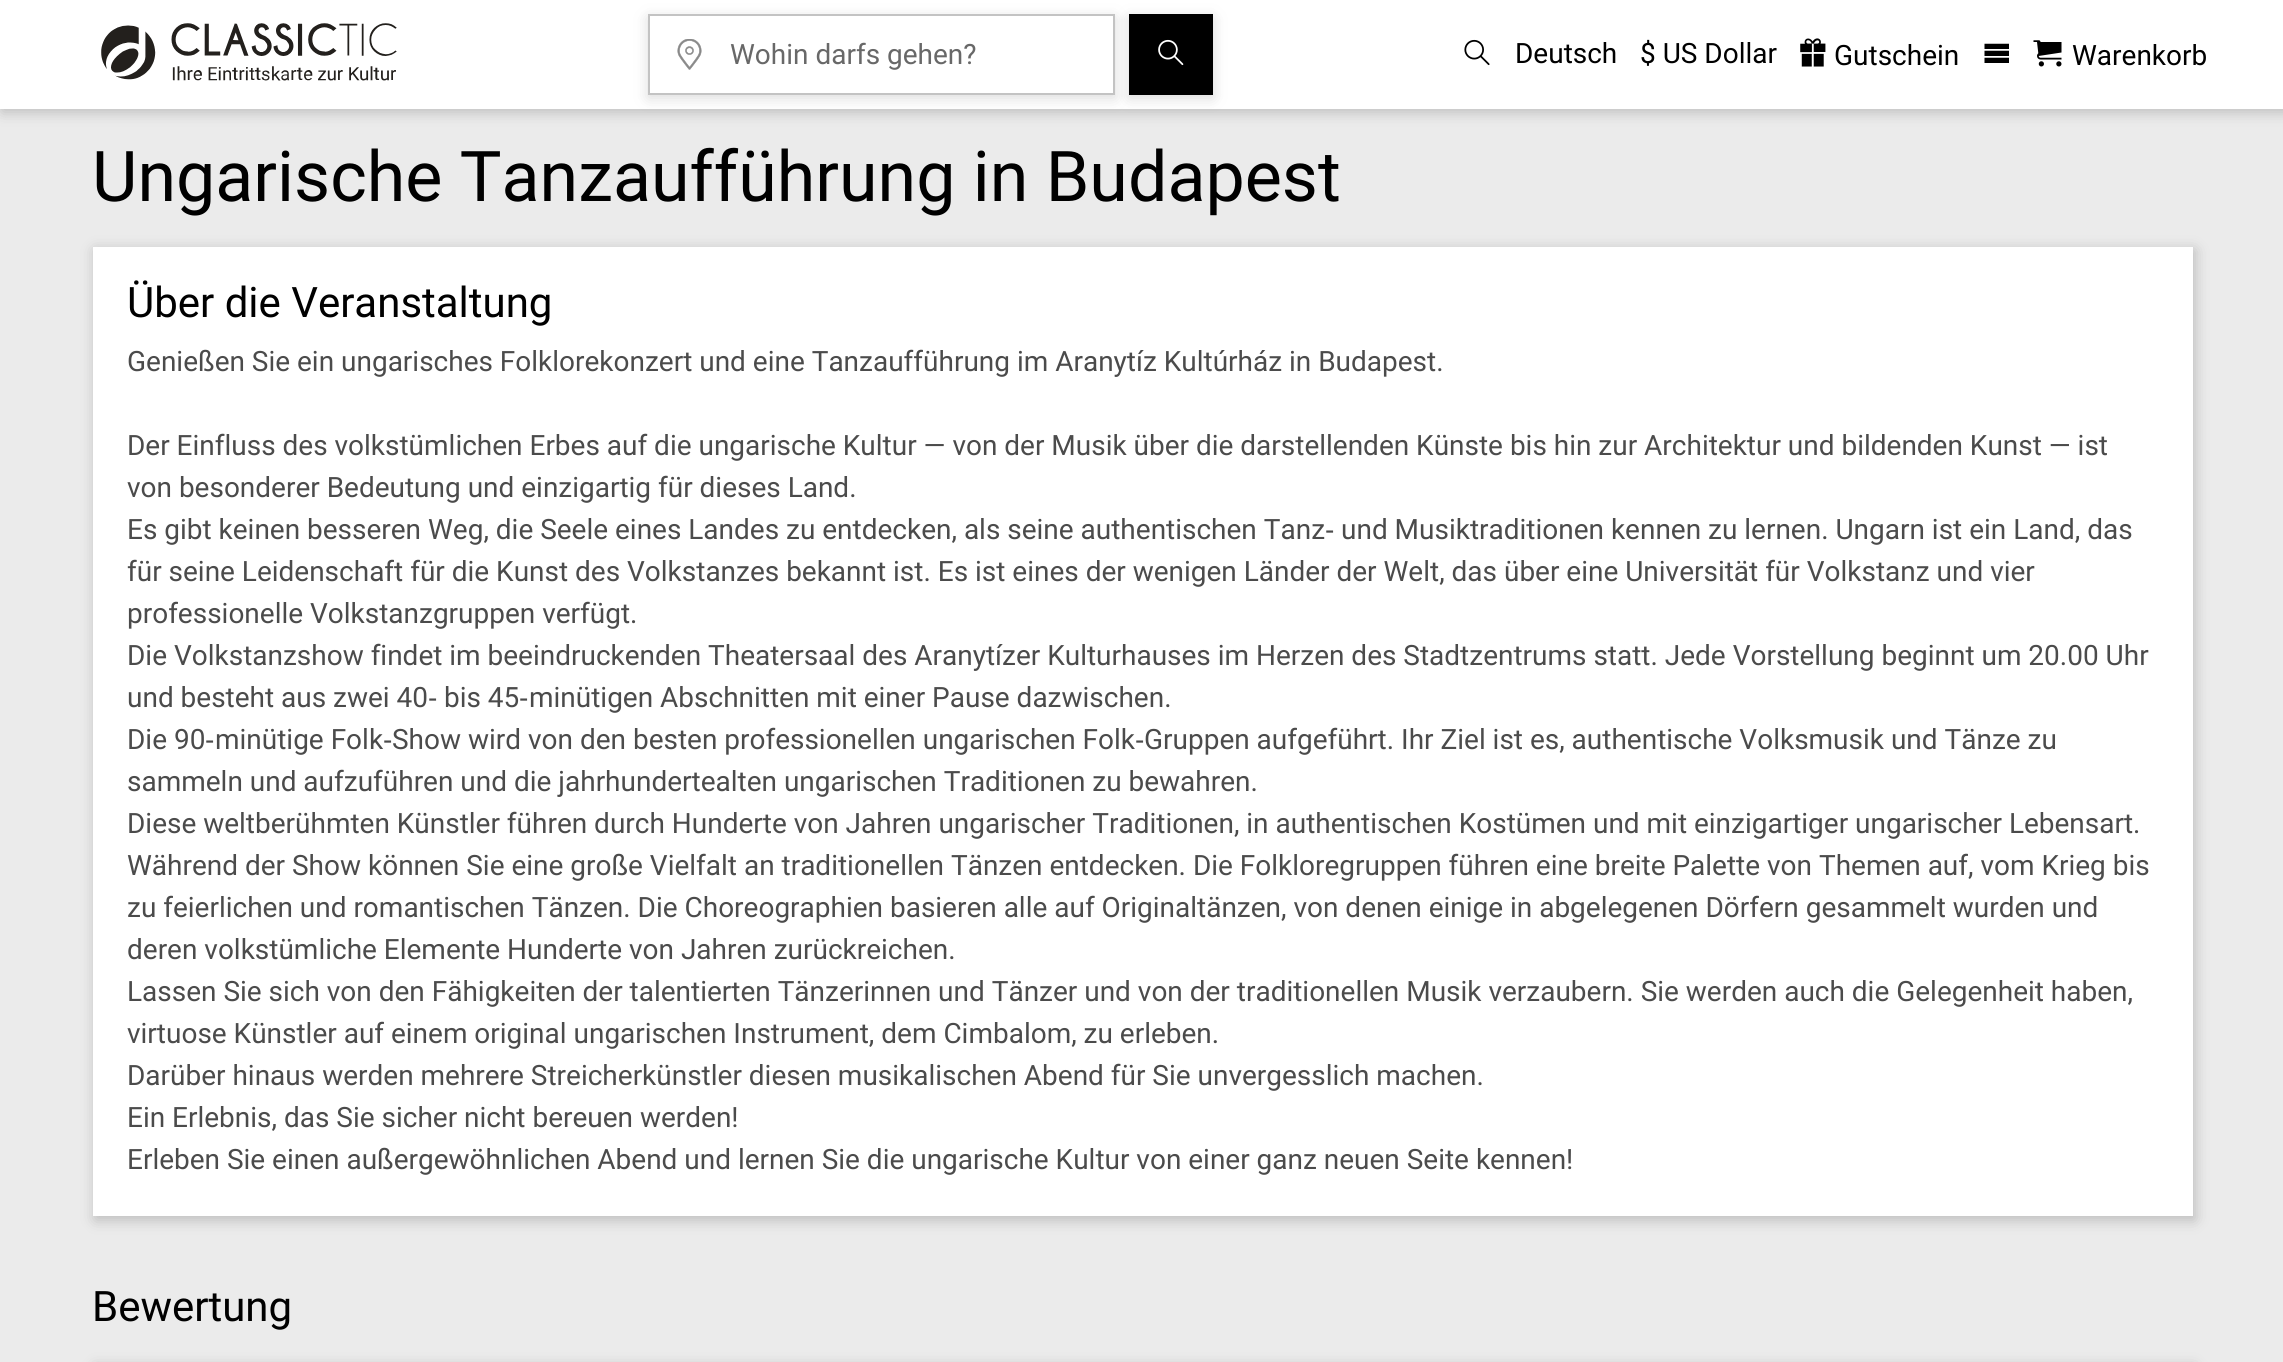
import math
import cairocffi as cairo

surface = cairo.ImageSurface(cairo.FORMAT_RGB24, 2283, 1362)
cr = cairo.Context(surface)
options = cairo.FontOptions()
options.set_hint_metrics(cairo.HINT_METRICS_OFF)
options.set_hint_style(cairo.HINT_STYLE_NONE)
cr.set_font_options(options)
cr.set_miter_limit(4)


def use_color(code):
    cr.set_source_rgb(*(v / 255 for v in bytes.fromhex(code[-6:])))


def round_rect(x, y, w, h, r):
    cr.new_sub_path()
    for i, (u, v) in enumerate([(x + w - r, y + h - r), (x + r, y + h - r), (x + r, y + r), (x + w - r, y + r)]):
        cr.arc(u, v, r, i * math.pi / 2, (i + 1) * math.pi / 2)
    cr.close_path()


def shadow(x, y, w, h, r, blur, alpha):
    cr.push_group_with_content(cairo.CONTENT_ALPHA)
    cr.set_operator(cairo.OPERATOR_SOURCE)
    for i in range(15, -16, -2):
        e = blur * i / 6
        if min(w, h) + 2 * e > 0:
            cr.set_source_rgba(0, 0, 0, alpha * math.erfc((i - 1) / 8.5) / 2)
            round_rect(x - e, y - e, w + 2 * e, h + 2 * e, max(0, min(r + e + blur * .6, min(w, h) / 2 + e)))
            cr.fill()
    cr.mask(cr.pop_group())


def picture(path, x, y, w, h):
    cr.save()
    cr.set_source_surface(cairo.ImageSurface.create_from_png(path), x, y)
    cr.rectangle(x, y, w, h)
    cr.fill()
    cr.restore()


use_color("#ebebeb")
cr.paint()
use_color("#4a4a4a")
shadow(2, 4, 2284, 108, 0, 7, 0.3)
use_color("#ffffff")
cr.rectangle(0, 0, 2283, 109)
cr.fill()
picture("img1.png", 101, 23, 296, 58)
use_color("#4a4a4a")
shadow(1129, 18, 84, 80, 0, 7, 0.2)
use_color("#000000")
cr.rectangle(1129, 14, 84, 81)
cr.fill()
use_color("#4a4a4a")
shadow(648, 18, 467, 80, 0, 7, 0.2)
use_color("#ffffff")
cr.rectangle(650, 16, 463, 77)
cr.fill()
picture("img2.png", 677, 39, 25, 31)
cr.rectangle(649, 15, 465, 79)
use_color("#c3c3c3")
cr.stroke()
cr.select_font_face("Roboto")
cr.set_font_size(28)
use_color("#686868")
cr.move_to(730, 64)
cr.show_text("Wohin darfs gehen?")
picture("img3.png", 1158, 39, 26, 27)
picture("img4.png", 1464, 39, 26, 27)
use_color("#000000")
cr.move_to(1515, 63)
cr.show_text("Deutsch")
cr.move_to(1640, 63)
cr.show_text("$ US Dollar")
picture("img5.png", 1800, 38, 26, 29)
cr.move_to(1834, 65)
cr.show_text("Gutschein")
picture("img6.png", 1984, 43, 25, 20)
picture("img7.png", 2033, 40, 29, 27)
cr.move_to(2072, 65)
cr.show_text("Warenkorb")
cr.set_font_size(70)
cr.move_to(92, 201)
cr.show_text("Ungarische Tanzaufführung in Budapest")
use_color("#4a4a4a")
shadow(95, 250, 2100, 970, 0, 7, 0.3)
use_color("#ffffff")
cr.rectangle(93, 247, 2100, 969)
cr.fill()
cr.set_font_size(42)
use_color("#000000")
cr.move_to(127, 317)
cr.show_text("Über die Veranstaltung")
cr.set_font_size(28)
use_color("#4b4b4b")
cr.move_to(127, 371)
cr.show_text("Genießen Sie ein ungarisches Folklorekonzert und eine Tanzaufführung im Aranytíz Kultúrház in Budapest.")
cr.move_to(127, 455)
cr.show_text("Der Einfluss des volkstümlichen Erbes auf die ungarische Kultur — von der Musik über die darstellenden Künste bis hin zur Architektur und bildenden Kunst — ist")
cr.move_to(127, 497)
cr.show_text("von besonderer Bedeutung und einzigartig für dieses Land.")
cr.move_to(127, 539)
cr.show_text("Es gibt keinen besseren Weg, die Seele eines Landes zu entdecken, als seine authentischen Tanz")
cr.select_font_face("Liberation Sans")
cr.move_to(1325, 539)
cr.show_text("‐")
cr.select_font_face("Roboto")
cr.move_to(1341, 539)
cr.show_text("und Musiktraditionen kennen zu lernen. Ungarn ist ein Land, das")
cr.move_to(127, 581)
cr.show_text("für seine Leidenschaft für die Kunst des Volkstanzes bekannt ist. Es ist eines der wenigen Länder der Welt, das über eine Universität für Volkstanz und vier")
cr.move_to(127, 623)
cr.show_text("professionelle Volkstanzgruppen verfügt.")
cr.move_to(127, 665)
cr.show_text("Die Volkstanzshow findet im beeindruckenden Theatersaal des Aranytízer Kulturhauses im Herzen des Stadtzentrums statt. Jede Vorstellung beginnt um 20.00 Uhr")
cr.move_to(127, 707)
cr.show_text("und besteht aus zwei 40")
cr.select_font_face("Liberation Sans")
cr.move_to(428, 707)
cr.show_text("‐")
cr.select_font_face("Roboto")
cr.move_to(444, 707)
cr.show_text("bis 45")
cr.select_font_face("Liberation Sans")
cr.move_to(519, 707)
cr.show_text("‐")
cr.select_font_face("Roboto")
cr.move_to(529, 707)
cr.show_text("minütigen Abschnitten mit einer Pause dazwischen.")
cr.move_to(127, 749)
cr.show_text("Die 90")
cr.select_font_face("Liberation Sans")
cr.move_to(205, 749)
cr.show_text("‐")
cr.select_font_face("Roboto")
cr.move_to(215, 749)
cr.show_text("minütige Folk")
cr.select_font_face("Liberation Sans")
cr.move_to(383, 749)
cr.show_text("‐")
cr.select_font_face("Roboto")
cr.move_to(392, 749)
cr.show_text("Show wird von den besten professionellen ungarischen Folk")
cr.select_font_face("Liberation Sans")
cr.move_to(1135, 749)
cr.show_text("‐")
cr.select_font_face("Roboto")
cr.move_to(1144, 749)
cr.show_text("Gruppen aufgeführt. Ihr Ziel ist es, authentische Volksmusik und Tänze zu")
cr.move_to(127, 791)
cr.show_text("sammeln und aufzuführen und die jahrhundertealten ungarischen Traditionen zu bewahren.")
cr.move_to(127, 833)
cr.show_text("Diese weltberühmten Künstler führen durch Hunderte von Jahren ungarischer Traditionen, in authentischen Kostümen und mit einzigartiger ungarischer Lebensart.")
cr.move_to(127, 875)
cr.show_text("Während der Show können Sie eine große Vielfalt an traditionellen Tänzen entdecken. Die Folkloregruppen führen eine breite Palette von Themen auf, vom Krieg bis")
cr.move_to(127, 917)
cr.show_text("zu feierlichen und romantischen Tänzen. Die Choreographien basieren alle auf Originaltänzen, von denen einige in abgelegenen Dörfern gesammelt wurden und")
cr.move_to(127, 959)
cr.show_text("deren volkstümliche Elemente Hunderte von Jahren zurückreichen.")
cr.move_to(127, 1001)
cr.show_text("Lassen Sie sich von den Fähigkeiten der talentierten Tänzerinnen und Tänzer und von der traditionellen Musik verzaubern. Sie werden auch die Gelegenheit haben,")
cr.move_to(127, 1043)
cr.show_text("virtuose Künstler auf einem original ungarischen Instrument, dem Cimbalom, zu erleben.")
cr.move_to(127, 1085)
cr.show_text("Darüber hinaus werden mehrere Streicherkünstler diesen musikalischen Abend für Sie unvergesslich machen.")
cr.move_to(127, 1127)
cr.show_text("Ein Erlebnis, das Sie sicher nicht bereuen werden!")
cr.move_to(127, 1169)
cr.show_text("Erleben Sie einen außergewöhnlichen Abend und lernen Sie die ungarische Kultur von einer ganz neuen Seite kennen!")
cr.set_font_size(42)
use_color("#000000")
cr.move_to(92, 1321)
cr.show_text("Bewertung")
use_color("#4a4a4a")
shadow(95, 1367, 2100, 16, 0, 7, 0.3)
surface.write_to_png("result.png")
